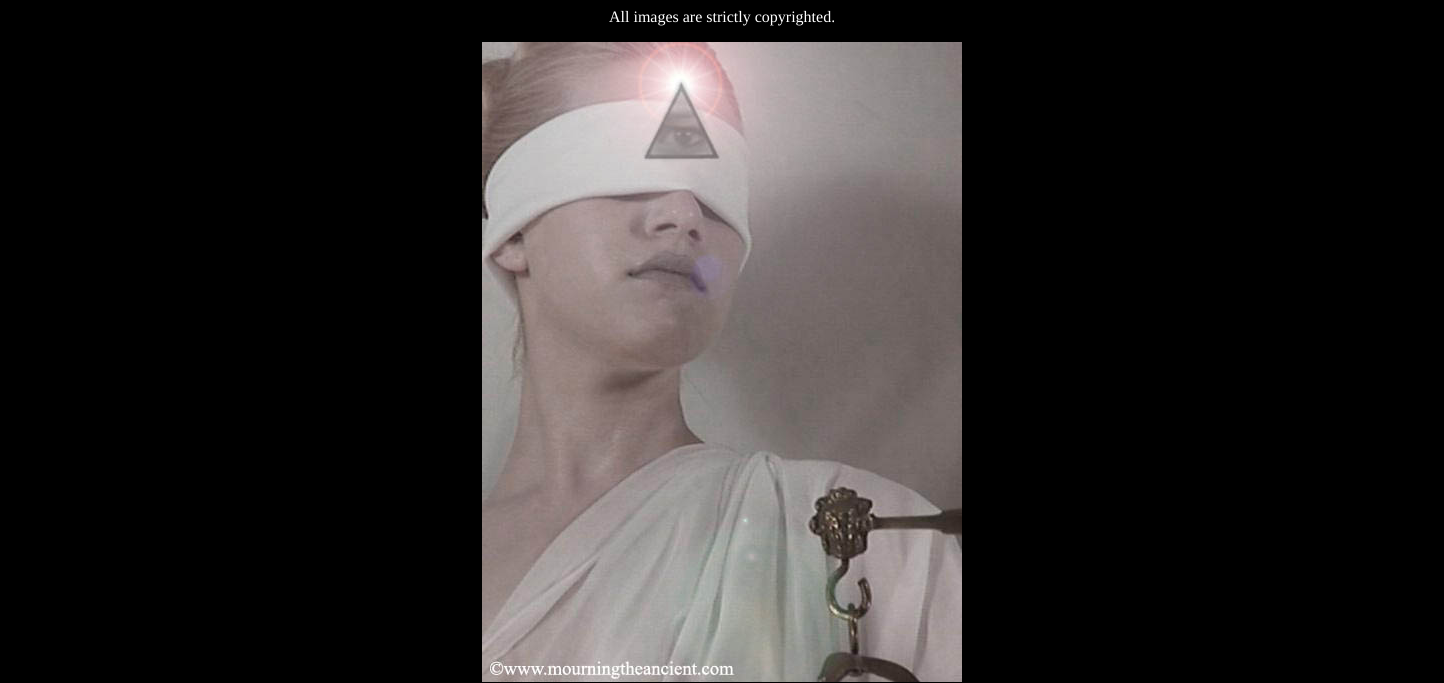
import math
import cairocffi as cairo

surface = cairo.ImageSurface(cairo.FORMAT_RGB24, 1444, 683)
cr = cairo.Context(surface)
options = cairo.FontOptions()
options.set_hint_metrics(cairo.HINT_METRICS_OFF)
options.set_hint_style(cairo.HINT_STYLE_NONE)
cr.set_font_options(options)
cr.set_miter_limit(4)


def use_color(code):
    cr.set_source_rgb(*(v / 255 for v in bytes.fromhex(code[-6:])))


def picture(path, x, y, w, h):
    cr.save()
    cr.set_source_surface(cairo.ImageSurface.create_from_png(path), x, y)
    cr.rectangle(x, y, w, h)
    cr.fill()
    cr.restore()


use_color("#000000")
cr.paint()
cr.select_font_face("Liberation Serif")
cr.set_font_size(16)
use_color("#ffffff")
cr.move_to(609, 22)
cr.show_text("All images are strictly copyrighted.")
picture("img1.png", 482, 42, 480, 640)
surface.write_to_png("result.png")
